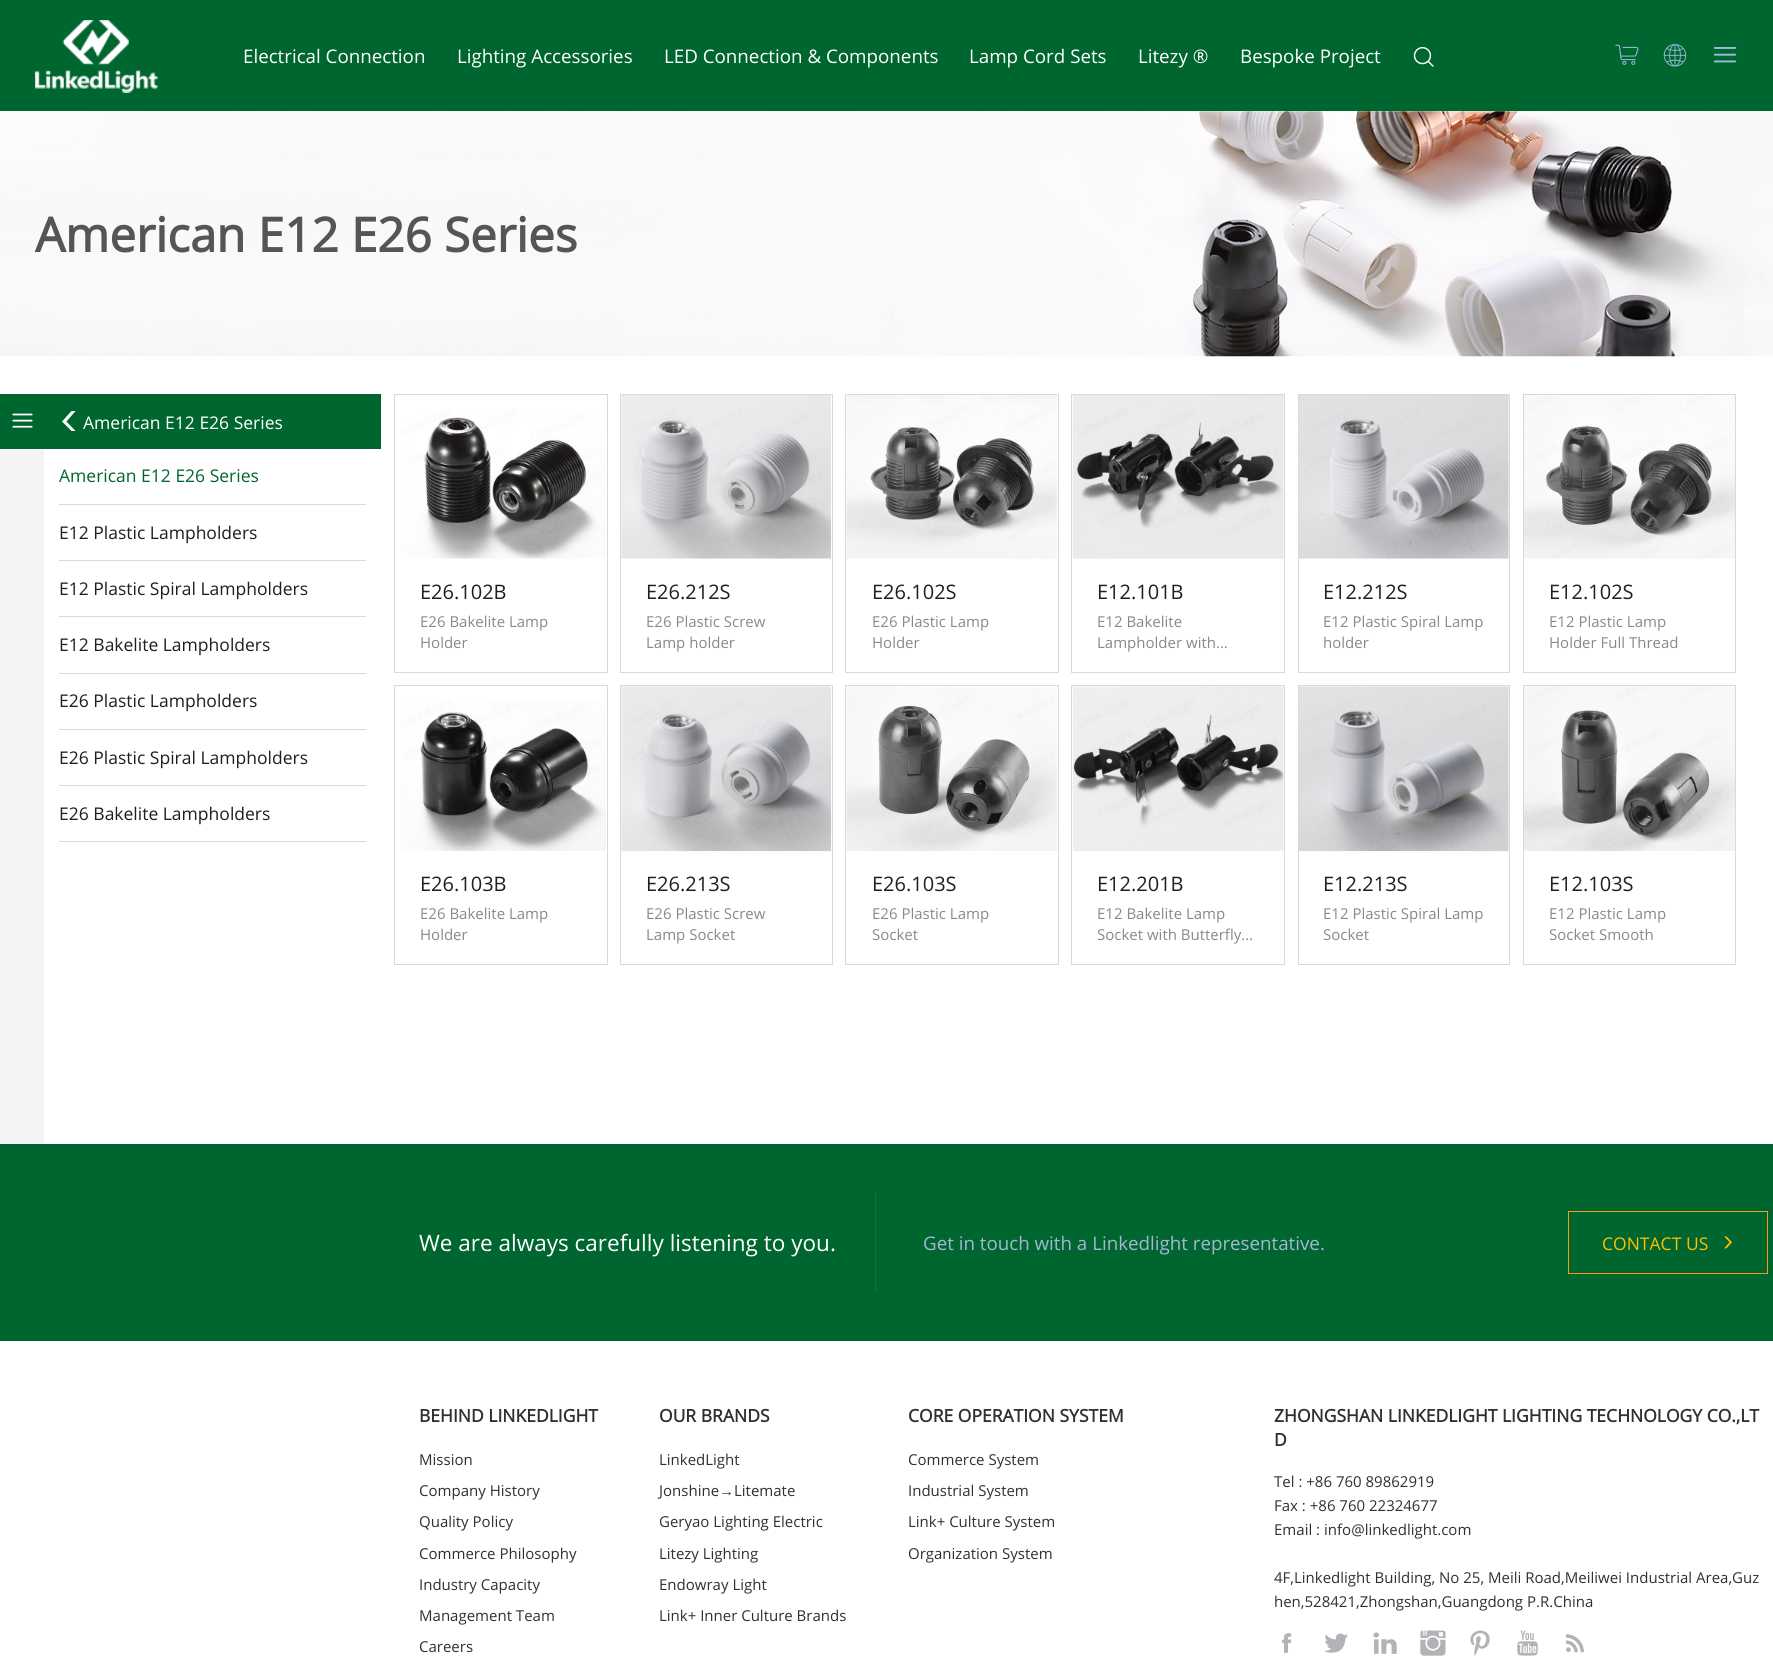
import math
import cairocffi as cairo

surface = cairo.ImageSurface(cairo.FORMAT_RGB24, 1773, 1657)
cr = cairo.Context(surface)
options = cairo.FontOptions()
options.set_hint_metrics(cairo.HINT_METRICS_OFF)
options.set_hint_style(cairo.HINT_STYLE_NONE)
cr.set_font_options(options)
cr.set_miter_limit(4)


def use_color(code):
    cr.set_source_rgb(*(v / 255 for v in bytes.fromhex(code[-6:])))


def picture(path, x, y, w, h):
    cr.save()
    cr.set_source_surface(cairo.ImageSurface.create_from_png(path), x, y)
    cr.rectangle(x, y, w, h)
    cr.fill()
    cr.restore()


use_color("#ffffff")
cr.paint()
use_color("#006630")
cr.rectangle(0, 0, 1773, 111)
cr.fill()
picture("img1.png", 35, 20, 123, 73)
cr.select_font_face("Open Sans")
cr.set_font_size(18.75)
use_color("#ffffff")
cr.move_to(243, 63)
cr.show_text("Electrical Connection")
cr.move_to(457, 63)
cr.show_text("Lighting Accessories")
cr.move_to(664, 63)
cr.show_text("LED Connection & Components")
cr.move_to(969, 63)
cr.show_text("Lamp Cord Sets")
cr.move_to(1138, 63)
cr.show_text("Litezy ®")
cr.move_to(1240, 63)
cr.show_text("Bespoke Project")
picture("img2.png", 1413, 47, 21, 20)
picture("img3.png", 1615, 44, 24, 21)
picture("img4.png", 1663, 44, 24, 23)
picture("img5.png", 1713, 47, 24, 16)
picture("img6.png", 0, 111, 1773, 246)
cr.select_font_face("Open Sans", cairo.FONT_SLANT_NORMAL, cairo.FONT_WEIGHT_BOLD)
cr.set_font_size(47.5)
use_color("#555555")
cr.move_to(35, 252)
cr.show_text("American E12 E26 Series")
use_color("#f4f4f4")
cr.rectangle(0, 449, 44, 695)
cr.fill()
use_color("#006630")
cr.rectangle(0, 394, 381, 55)
cr.fill()
picture("img7.png", 12, 413, 21, 15)
use_color("#ffffff")
cr.new_path()
cr.move_to(66.5, 421.5)
cr.line_to(75.5, 431)
cr.line_to(71.5, 431)
cr.line_to(62, 421.5)
cr.line_to(71.5, 411)
cr.line_to(75.5, 411)
cr.close_path()
cr.fill()
cr.select_font_face("Open Sans")
cr.set_font_size(17.5)
cr.move_to(83, 429)
cr.show_text("American E12 E26 Series")
use_color("#d9d9d9")
cr.rectangle(59, 504, 307, 1)
cr.fill()
use_color("#006630")
cr.move_to(59, 482)
cr.show_text("American E12 E26 Series")
use_color("#d9d9d9")
cr.rectangle(59, 560, 307, 1)
cr.fill()
use_color("#1f1f1f")
cr.move_to(59, 539)
cr.show_text("E12 Plastic Lampholders")
use_color("#d9d9d9")
cr.rectangle(59, 616, 307, 1)
cr.fill()
use_color("#1f1f1f")
cr.move_to(59, 595)
cr.show_text("E12 Plastic Spiral Lampholders")
use_color("#d9d9d9")
cr.rectangle(59, 673, 307, 1)
cr.fill()
use_color("#1f1f1f")
cr.move_to(59, 651)
cr.show_text("E12 Bakelite Lampholders")
use_color("#d9d9d9")
cr.rectangle(59, 729, 307, 1)
cr.fill()
use_color("#1f1f1f")
cr.move_to(59, 707)
cr.show_text("E26 Plastic Lampholders")
use_color("#d9d9d9")
cr.rectangle(59, 785, 307, 1)
cr.fill()
use_color("#1f1f1f")
cr.move_to(59, 764)
cr.show_text("E26 Plastic Spiral Lampholders")
use_color("#d9d9d9")
cr.rectangle(59, 841, 307, 1)
cr.fill()
use_color("#1f1f1f")
cr.move_to(59, 820)
cr.show_text("E26 Bakelite Lampholders")
cr.rectangle(394.5, 394.5, 213, 278)
use_color("#d8dada")
cr.set_line_width(1)
cr.stroke()
picture("img8.png", 400, 409, 206, 150)
cr.set_font_size(20)
use_color("#1f1f1f")
cr.move_to(420, 599)
cr.show_text("E26.102B")
cr.set_font_size(15)
use_color("#898989")
cr.move_to(420, 627)
cr.show_text("E26 Bakelite Lamp")
cr.move_to(420, 648)
cr.show_text("Holder")
cr.rectangle(620.5, 394.5, 212, 278)
use_color("#d8dada")
cr.stroke()
picture("img9.png", 621, 395, 210, 164)
cr.set_font_size(20)
use_color("#1f1f1f")
cr.move_to(646, 599)
cr.show_text("E26.212S")
cr.set_font_size(15)
use_color("#898989")
cr.move_to(646, 627)
cr.show_text("E26 Plastic Screw")
cr.move_to(646, 648)
cr.show_text("Lamp holder")
cr.rectangle(845.5, 394.5, 213, 278)
use_color("#d8dada")
cr.stroke()
picture("img10.png", 846, 395, 212, 164)
cr.set_font_size(20)
use_color("#1f1f1f")
cr.move_to(872, 599)
cr.show_text("E26.102S")
cr.set_font_size(15)
use_color("#898989")
cr.move_to(872, 627)
cr.show_text("E26 Plastic Lamp")
cr.move_to(872, 648)
cr.show_text("Holder")
cr.rectangle(1071.5, 394.5, 213, 278)
use_color("#d8dada")
cr.stroke()
picture("img11.png", 1072, 395, 212, 164)
cr.set_font_size(20)
use_color("#1f1f1f")
cr.move_to(1097, 599)
cr.show_text("E12.101B")
cr.set_font_size(15)
use_color("#898989")
cr.move_to(1097, 627)
cr.show_text("E12 Bakelite")
cr.move_to(1097, 648)
cr.show_text("Lampholder with…")
cr.rectangle(1298.5, 394.5, 211, 278)
use_color("#d8dada")
cr.stroke()
picture("img12.png", 1299, 395, 210, 164)
cr.set_font_size(20)
use_color("#1f1f1f")
cr.move_to(1323, 599)
cr.show_text("E12.212S")
cr.set_font_size(15)
use_color("#898989")
cr.move_to(1323, 627)
cr.show_text("E12 Plastic Spiral Lamp")
cr.move_to(1323, 648)
cr.show_text("holder")
cr.rectangle(1523.5, 394.5, 212, 278)
use_color("#d8dada")
cr.stroke()
picture("img13.png", 1524, 395, 211, 164)
cr.set_font_size(20)
use_color("#1f1f1f")
cr.move_to(1549, 599)
cr.show_text("E12.102S")
cr.set_font_size(15)
use_color("#898989")
cr.move_to(1549, 627)
cr.show_text("E12 Plastic Lamp")
cr.move_to(1549, 648)
cr.show_text("Holder Full Thread")
cr.rectangle(394.5, 685.5, 213, 279)
use_color("#d8dada")
cr.stroke()
picture("img14.png", 400, 700, 206, 151)
cr.set_font_size(20)
use_color("#1f1f1f")
cr.move_to(420, 891)
cr.show_text("E26.103B")
cr.set_font_size(15)
use_color("#898989")
cr.move_to(420, 919)
cr.show_text("E26 Bakelite Lamp")
cr.move_to(420, 940)
cr.show_text("Holder")
cr.rectangle(620.5, 685.5, 212, 279)
use_color("#d8dada")
cr.stroke()
picture("img15.png", 621, 686, 211, 166)
cr.set_font_size(20)
use_color("#1f1f1f")
cr.move_to(646, 891)
cr.show_text("E26.213S")
cr.set_font_size(15)
use_color("#898989")
cr.move_to(646, 919)
cr.show_text("E26 Plastic Screw")
cr.move_to(646, 940)
cr.show_text("Lamp Socket")
cr.rectangle(845.5, 685.5, 213, 279)
use_color("#d8dada")
cr.stroke()
picture("img16.png", 846, 686, 212, 165)
cr.set_font_size(20)
use_color("#1f1f1f")
cr.move_to(872, 891)
cr.show_text("E26.103S")
cr.set_font_size(15)
use_color("#898989")
cr.move_to(872, 919)
cr.show_text("E26 Plastic Lamp")
cr.move_to(872, 940)
cr.show_text("Socket")
cr.rectangle(1071.5, 685.5, 213, 279)
use_color("#d8dada")
cr.stroke()
picture("img17.png", 1072, 686, 212, 165)
cr.set_font_size(20)
use_color("#1f1f1f")
cr.move_to(1097, 891)
cr.show_text("E12.201B")
cr.set_font_size(15)
use_color("#898989")
cr.move_to(1097, 919)
cr.show_text("E12 Bakelite Lamp")
cr.move_to(1097, 940)
cr.show_text("Socket with Butterfly…")
cr.rectangle(1298.5, 685.5, 211, 279)
use_color("#d8dada")
cr.stroke()
picture("img18.png", 1299, 686, 210, 166)
cr.set_font_size(20)
use_color("#1f1f1f")
cr.move_to(1323, 891)
cr.show_text("E12.213S")
cr.set_font_size(15)
use_color("#898989")
cr.move_to(1323, 919)
cr.show_text("E12 Plastic Spiral Lamp")
cr.move_to(1323, 940)
cr.show_text("Socket")
cr.rectangle(1523.5, 685.5, 212, 279)
use_color("#d8dada")
cr.stroke()
picture("img19.png", 1524, 686, 211, 165)
cr.set_font_size(20)
use_color("#1f1f1f")
cr.move_to(1549, 891)
cr.show_text("E12.103S")
cr.set_font_size(15)
use_color("#898989")
cr.move_to(1549, 919)
cr.show_text("E12 Plastic Lamp")
cr.move_to(1549, 940)
cr.show_text("Socket Smooth")
use_color("#006630")
cr.rectangle(0, 1144, 1773, 197)
cr.fill()
use_color("#007f3c")
cr.rectangle(875, 1193, 1, 100)
cr.fill()
cr.set_font_size(22.5)
use_color("#ffffff")
cr.move_to(419, 1251)
cr.show_text("We are always carefully listening to you.")
cr.set_font_size(18.75)
use_color("#a3b7d3")
cr.move_to(923, 1250)
cr.show_text("Get in touch with a Linkedlight representative.")
cr.rectangle(1568.5, 1211.5, 199, 62)
use_color("#f39d16")
cr.stroke()
cr.set_font_size(17.5)
use_color("#ffc000")
cr.move_to(1602, 1250)
cr.show_text("CONTACT US")
picture("img20.png", 1724, 1236, 8, 13)
cr.select_font_face("Open Sans", cairo.FONT_SLANT_NORMAL, cairo.FONT_WEIGHT_BOLD)
use_color("#303030")
cr.move_to(419, 1422)
cr.show_text("BEHIND LINKEDLIGHT")
cr.select_font_face("Open Sans")
cr.set_font_size(15)
cr.move_to(419, 1465)
cr.show_text("Mission")
cr.move_to(419, 1496)
cr.show_text("Company History")
cr.move_to(419, 1527)
cr.show_text("Quality Policy")
cr.move_to(419, 1559)
cr.show_text("Commerce Philosophy")
cr.move_to(419, 1590)
cr.show_text("Industry Capacity")
cr.move_to(419, 1621)
cr.show_text("Management Team")
cr.move_to(419, 1652)
cr.show_text("Careers")
cr.select_font_face("Open Sans", cairo.FONT_SLANT_NORMAL, cairo.FONT_WEIGHT_BOLD)
cr.set_font_size(17.5)
cr.move_to(659, 1422)
cr.show_text("OUR BRANDS")
cr.select_font_face("Open Sans")
cr.set_font_size(15)
cr.move_to(659, 1465)
cr.show_text("LinkedLight")
cr.move_to(659, 1496)
cr.show_text("Jonshine")
cr.select_font_face("Liberation Sans")
cr.move_to(719, 1496)
cr.show_text("→")
cr.select_font_face("Open Sans")
cr.move_to(734, 1496)
cr.show_text("Litemate")
cr.move_to(659, 1527)
cr.show_text("Geryao Lighting Electric")
cr.move_to(659, 1559)
cr.show_text("Litezy Lighting")
cr.move_to(659, 1590)
cr.show_text("Endowray Light")
cr.move_to(659, 1621)
cr.show_text("Link+ Inner Culture Brands")
cr.select_font_face("Open Sans", cairo.FONT_SLANT_NORMAL, cairo.FONT_WEIGHT_BOLD)
cr.set_font_size(17.5)
cr.move_to(908, 1422)
cr.show_text("CORE OPERATION SYSTEM")
cr.select_font_face("Open Sans")
cr.set_font_size(15)
cr.move_to(908, 1465)
cr.show_text("Commerce System")
cr.move_to(908, 1496)
cr.show_text("Industrial System")
cr.move_to(908, 1527)
cr.show_text("Link+ Culture System")
cr.move_to(908, 1559)
cr.show_text("Organization System")
cr.select_font_face("Open Sans", cairo.FONT_SLANT_NORMAL, cairo.FONT_WEIGHT_BOLD)
cr.set_font_size(17.5)
cr.move_to(1274, 1422)
cr.show_text("ZHONGSHAN LINKEDLIGHT LIGHTING TECHNOLOGY CO.,LT")
cr.move_to(1274, 1446)
cr.show_text("D")
cr.select_font_face("Open Sans")
cr.set_font_size(15)
cr.move_to(1274, 1487)
cr.show_text("Tel : +86 760 89862919")
cr.move_to(1274, 1511)
cr.show_text("Fax : +86 760 22324677")
cr.move_to(1274, 1535)
cr.show_text("Email : info@linkedlight.com")
cr.move_to(1274, 1583)
cr.show_text("4F,Linkedlight Building, No 25, Meili Road,Meiliwei Industrial Area,Guz")
cr.move_to(1274, 1607)
cr.show_text("hen,528421,Zhongshan,Guangdong P.R.China")
picture("img21.png", 1282, 1633, 10, 20)
picture("img22.png", 1324, 1633, 24, 20)
picture("img23.png", 1373, 1632, 24, 22)
picture("img24.png", 1420, 1630, 26, 26)
picture("img25.png", 1470, 1630, 20, 26)
picture("img26.png", 1517, 1630, 21, 26)
picture("img27.png", 1566, 1634, 18, 19)
surface.write_to_png("result.png")
